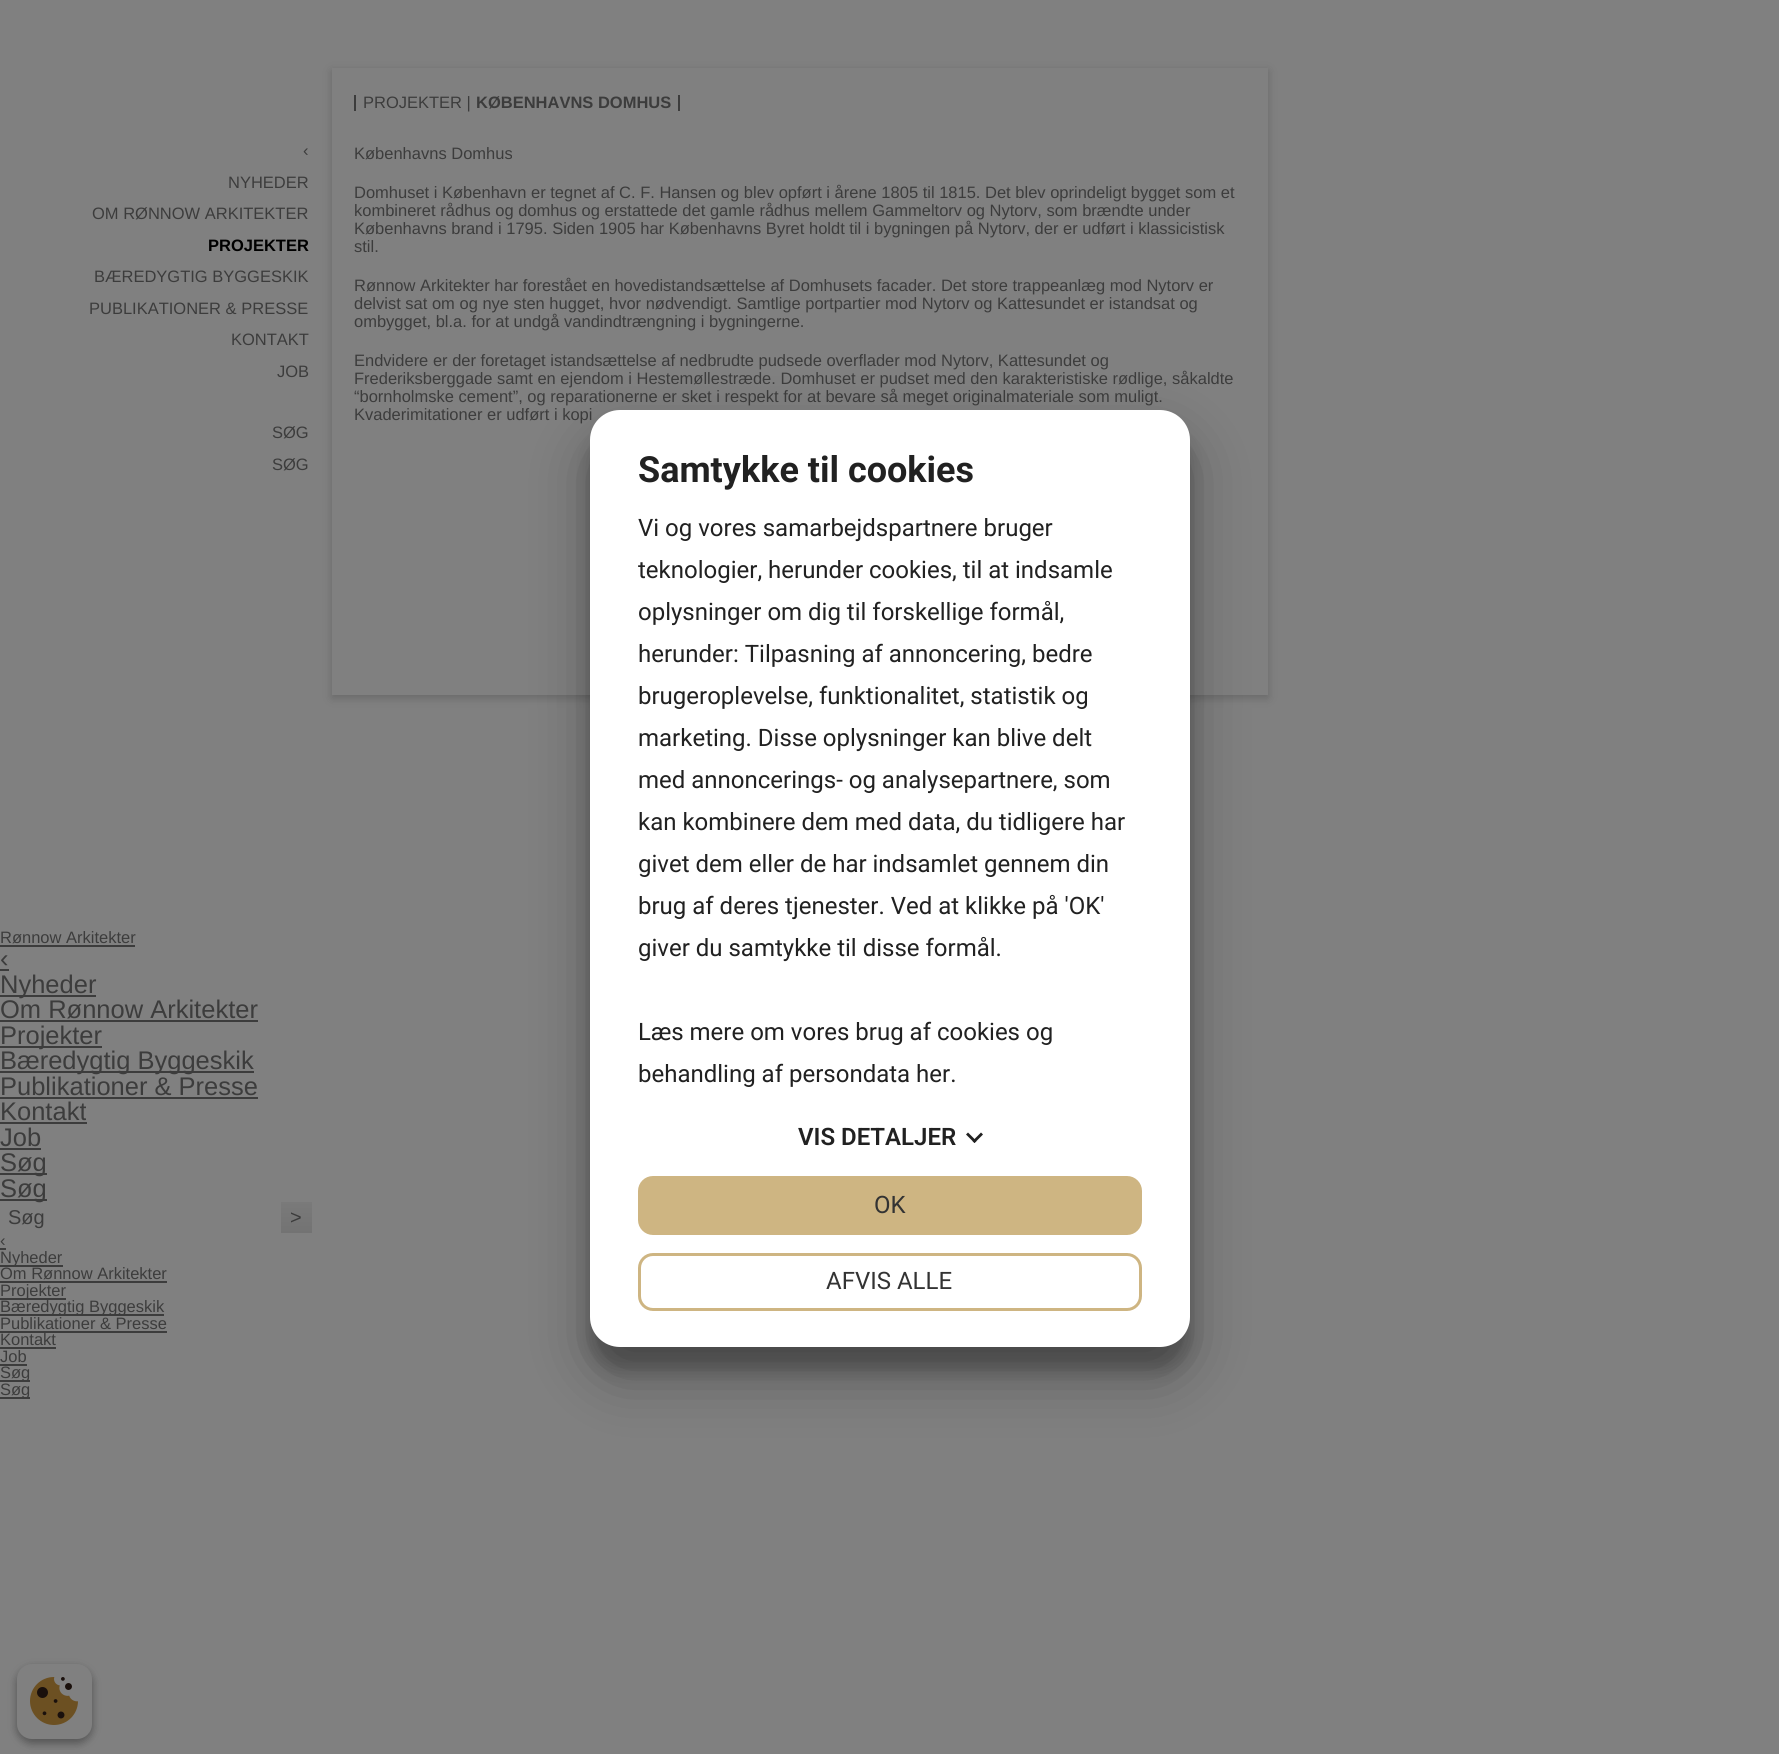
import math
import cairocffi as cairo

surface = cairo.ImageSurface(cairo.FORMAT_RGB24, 1779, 1754)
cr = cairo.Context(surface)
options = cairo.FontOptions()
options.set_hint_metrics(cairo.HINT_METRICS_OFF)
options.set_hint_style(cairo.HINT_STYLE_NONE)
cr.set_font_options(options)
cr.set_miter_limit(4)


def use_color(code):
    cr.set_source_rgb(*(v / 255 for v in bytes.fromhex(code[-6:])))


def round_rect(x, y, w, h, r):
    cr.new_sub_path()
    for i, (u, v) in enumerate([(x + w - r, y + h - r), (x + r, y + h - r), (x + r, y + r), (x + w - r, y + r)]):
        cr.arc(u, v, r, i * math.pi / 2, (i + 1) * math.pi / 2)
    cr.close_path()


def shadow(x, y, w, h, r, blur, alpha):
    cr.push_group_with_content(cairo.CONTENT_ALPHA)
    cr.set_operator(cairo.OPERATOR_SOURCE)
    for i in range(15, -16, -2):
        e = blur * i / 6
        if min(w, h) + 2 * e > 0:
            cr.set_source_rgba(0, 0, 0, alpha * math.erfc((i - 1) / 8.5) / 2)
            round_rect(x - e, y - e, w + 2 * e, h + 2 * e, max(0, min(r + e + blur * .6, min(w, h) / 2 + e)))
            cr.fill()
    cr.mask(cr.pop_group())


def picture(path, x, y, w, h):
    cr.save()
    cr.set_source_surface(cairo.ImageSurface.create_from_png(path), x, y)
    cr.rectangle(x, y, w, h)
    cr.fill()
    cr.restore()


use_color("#808080")
cr.paint()
cr.select_font_face("Liberation Sans")
cr.set_font_size(16.5)
use_color("#3c3c3c")
cr.move_to(303, 156)
cr.show_text("‹")
cr.move_to(228, 188)
cr.show_text("NYHEDER")
cr.move_to(92, 219)
cr.show_text("OM RØNNOW ARKITEKTER")
cr.select_font_face("Liberation Sans", cairo.FONT_SLANT_NORMAL, cairo.FONT_WEIGHT_BOLD)
use_color("#000000")
cr.move_to(208, 251)
cr.show_text("PROJEKTER")
cr.select_font_face("Liberation Sans")
use_color("#3c3c3c")
cr.move_to(94, 282)
cr.show_text("BÆREDYGTIG BYGGESKIK")
cr.move_to(89, 314)
cr.show_text("PUBLIKATIONER & PRESSE")
cr.move_to(231, 345)
cr.show_text("KONTAKT")
cr.move_to(277, 377)
cr.show_text("JOB")
cr.move_to(272, 438)
cr.show_text("SØG")
cr.move_to(272, 470)
cr.show_text("SØG")
use_color("#323232")
shadow(332, 71, 936, 627, 0, 4.5, 0.3)
use_color("#808080")
cr.rectangle(332, 68, 936, 627)
cr.fill()
use_color("#3c3c3c")
cr.rectangle(678, 95, 2, 16)
cr.fill()
cr.rectangle(354, 95, 2, 16)
cr.fill()
cr.move_to(363, 108)
cr.show_text("PROJEKTER |")
cr.select_font_face("Liberation Sans", cairo.FONT_SLANT_NORMAL, cairo.FONT_WEIGHT_BOLD)
cr.move_to(476, 108)
cr.show_text("KØBENHAVNS DOMHUS")
cr.select_font_face("Liberation Sans")
cr.move_to(354, 159)
cr.show_text("Københavns Domhus")
cr.move_to(354, 198)
cr.show_text("Domhuset i København er tegnet af C. F. Hansen og blev opført i årene 1805 til 1815. Det blev oprindeligt bygget som et")
cr.move_to(354, 216)
cr.show_text("kombineret rådhus og domhus og erstattede det gamle rådhus mellem Gammeltorv og Nytorv, som brændte under")
cr.move_to(354, 234)
cr.show_text("Københavns brand i 1795. Siden 1905 har Københavns Byret holdt til i bygningen på Nytorv, der er udført i klassicistisk")
cr.move_to(354, 252)
cr.show_text("stil.")
cr.move_to(354, 291)
cr.show_text("Rønnow Arkitekter har forestået en hovedistandsættelse af Domhusets facader. Det store trappeanlæg mod Nytorv er")
cr.move_to(354, 309)
cr.show_text("delvist sat om og nye sten hugget, hvor nødvendigt. Samtlige portpartier mod Nytorv og Kattesundet er istandsat og")
cr.move_to(354, 327)
cr.show_text("ombygget, bl.a. for at undgå vandindtrængning i bygningerne.")
cr.move_to(354, 366)
cr.show_text("Endvidere er der foretaget istandsættelse af nedbrudte pudsede overflader mod Nytorv, Kattesundet og")
cr.move_to(354, 384)
cr.show_text("Frederiksberggade samt en ejendom i Hestemøllestræde. Domhuset er pudset med den karakteristiske rødlige, såkaldte")
cr.move_to(354, 402)
cr.show_text("“bornholmske cement”, og reparationerne er sket i respekt for at bevare så meget originalmateriale som muligt.")
cr.move_to(354, 420)
cr.show_text("Kvaderimitationer er udført i kopi")
cr.move_to(0, 943)
cr.show_text("Rønnow Arkitekter")
cr.rectangle(0, 945, 135, 2)
cr.fill()
use_color("#000000")
shadow(590, 432, 600, 938, 30, 9, 0.22)
shadow(590, 438, 600, 938, 30, 28.5, 0.3)
use_color("#ffffff")
round_rect(590, 410, 600, 937, 30)
cr.fill()
cr.select_font_face("Roboto", cairo.FONT_SLANT_NORMAL, cairo.FONT_WEIGHT_BOLD)
cr.set_font_size(36)
use_color("#212121")
cr.move_to(638, 482)
cr.show_text("Samtykke til cookies")
cr.select_font_face("Roboto")
cr.set_font_size(24)
cr.move_to(638, 536)
cr.show_text("Vi og vores samarbejdspartnere bruger")
cr.move_to(638, 578)
cr.show_text("teknologier, herunder cookies, til at indsamle")
cr.move_to(638, 620)
cr.show_text("oplysninger om dig til forskellige formål,")
cr.move_to(638, 662)
cr.show_text("herunder: Tilpasning af annoncering, bedre")
cr.move_to(638, 704)
cr.show_text("brugeroplevelse, funktionalitet, statistik og")
cr.move_to(638, 746)
cr.show_text("marketing. Disse oplysninger kan blive delt")
cr.move_to(638, 788)
cr.show_text("med annoncerings- og analysepartnere, som")
cr.move_to(638, 830)
cr.show_text("kan kombinere dem med data, du tidligere har")
cr.move_to(638, 872)
cr.show_text("givet dem eller de har indsamlet gennem din")
cr.move_to(638, 914)
cr.show_text("brug af deres tjenester. Ved at klikke på 'OK'")
cr.move_to(638, 956)
cr.show_text("giver du samtykke til disse formål.")
cr.move_to(638, 1040)
cr.show_text("Læs mere om vores brug af cookies og")
cr.move_to(638, 1082)
cr.show_text("behandling af persondata her.")
cr.select_font_face("Roboto SemiBold")
cr.move_to(798, 1145)
cr.show_text("VIS DETALJER")
cr.new_path()
cr.move_to(981, 1132.5)
cr.line_to(983, 1134.5)
cr.line_to(974.5, 1143)
cr.line_to(972.5, 1141)
cr.close_path()
cr.fill()
cr.new_path()
cr.move_to(968, 1132.5)
cr.line_to(976.5, 1141)
cr.line_to(974.5, 1143)
cr.line_to(966, 1134.5)
cr.close_path()
cr.fill()
use_color("#ceb582")
round_rect(639.5, 1177.5, 501, 56, 13.5)
cr.fill_preserve()
cr.set_line_width(3)
cr.stroke()
cr.select_font_face("Roboto")
use_color("#333333")
cr.move_to(874, 1213)
cr.show_text("OK")
round_rect(639.5, 1254.5, 501, 55, 13.5)
use_color("#ceb582")
cr.stroke()
use_color("#333333")
cr.move_to(826, 1289)
cr.show_text("AFVIS ALLE")
cr.select_font_face("Liberation Sans")
cr.set_font_size(25.5)
use_color("#3c3c3c")
cr.move_to(0, 967)
cr.show_text("‹")
cr.rectangle(0, 969, 9, 2)
cr.fill()
cr.rectangle(0, 995, 96, 2)
cr.fill()
cr.move_to(0, 993)
cr.show_text("Nyheder")
cr.move_to(0, 1018)
cr.show_text("Om Rønnow Arkitekter")
cr.rectangle(0, 1020, 258, 2)
cr.fill()
cr.rectangle(0, 1046, 102, 2)
cr.fill()
cr.move_to(0, 1044)
cr.show_text("Projekter")
cr.rectangle(0, 1071, 254, 2)
cr.fill()
cr.move_to(0, 1069)
cr.show_text("Bæredygtig Byggeskik")
cr.move_to(0, 1095)
cr.show_text("Publikationer & Presse")
cr.rectangle(0, 1097, 258, 2)
cr.fill()
cr.move_to(0, 1120)
cr.show_text("Kontakt")
cr.rectangle(0, 1122, 87, 2)
cr.fill()
cr.move_to(0, 1146)
cr.show_text("Job")
cr.rectangle(0, 1148, 41, 2)
cr.fill()
cr.rectangle(0, 1173, 47, 2)
cr.fill()
cr.move_to(0, 1171)
cr.show_text("Søg")
cr.rectangle(0, 1199, 47, 2)
cr.fill()
cr.move_to(0, 1197)
cr.show_text("Søg")
cr.set_font_size(20)
cr.move_to(8, 1224)
cr.show_text("Søg")
gradient = cairo.LinearGradient(296, 1202, 296, 1233)
gradient.add_color_stop_rgba(0, 0.478, 0.478, 0.478, 1)
gradient.add_color_stop_rgba(1, 0.451, 0.451, 0.451, 1)
cr.set_source(gradient)
cr.rectangle(281, 1202, 31, 31)
cr.fill()
use_color("#3c3c3c")
cr.move_to(290, 1224)
cr.show_text(">")
cr.set_font_size(16.5)
cr.move_to(0, 1246)
cr.show_text("‹")
cr.rectangle(0, 1248, 6, 2)
cr.fill()
cr.rectangle(0, 1265, 63, 2)
cr.fill()
cr.move_to(0, 1263)
cr.show_text("Nyheder")
cr.move_to(0, 1279)
cr.show_text("Om Rønnow Arkitekter")
cr.rectangle(0, 1281, 167, 2)
cr.fill()
cr.rectangle(0, 1298, 66, 2)
cr.fill()
cr.move_to(0, 1296)
cr.show_text("Projekter")
cr.rectangle(0, 1314, 164, 2)
cr.fill()
cr.move_to(0, 1312)
cr.show_text("Bæredygtig Byggeskik")
cr.move_to(0, 1329)
cr.show_text("Publikationer & Presse")
cr.rectangle(0, 1331, 167, 2)
cr.fill()
cr.move_to(0, 1345)
cr.show_text("Kontakt")
cr.rectangle(0, 1347, 56, 2)
cr.fill()
cr.move_to(0, 1362)
cr.show_text("Job")
cr.rectangle(0, 1364, 27, 2)
cr.fill()
cr.rectangle(0, 1380, 30, 2)
cr.fill()
cr.move_to(0, 1378)
cr.show_text("Søg")
cr.rectangle(0, 1397, 30, 2)
cr.fill()
cr.move_to(0, 1395)
cr.show_text("Søg")
use_color("#000000")
shadow(17, 1668, 75, 75, 15, 4.5, 0.23)
shadow(17, 1668, 75, 75, 15, 4.5, 0.16)
use_color("#808080")
round_rect(17, 1664, 75, 75, 15)
cr.fill()
picture("img1.png", 30, 1677, 48, 48)
surface.write_to_png("result.png")
